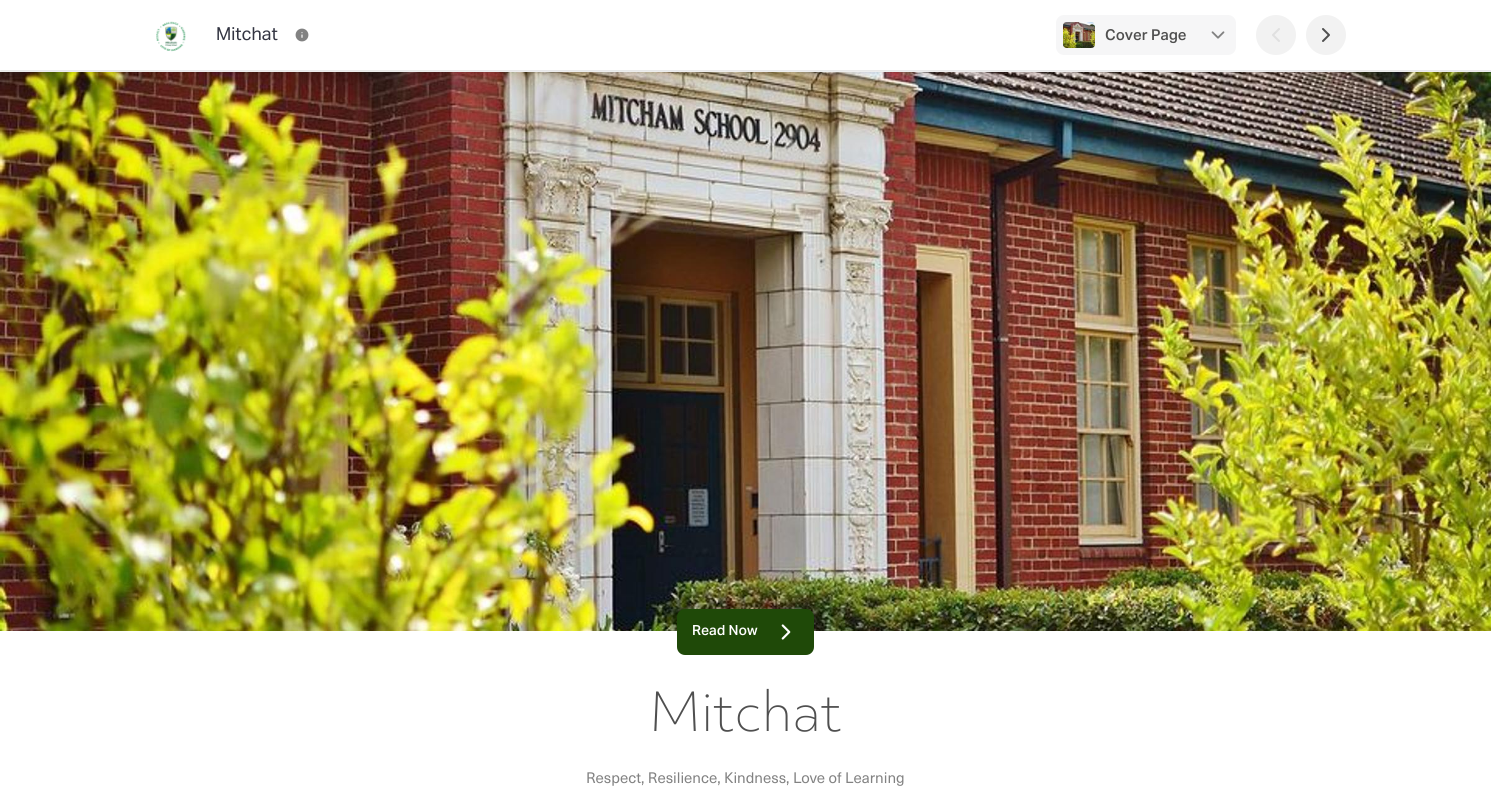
import math
import cairocffi as cairo

surface = cairo.ImageSurface(cairo.FORMAT_RGB24, 1491, 805)
cr = cairo.Context(surface)
options = cairo.FontOptions()
options.set_hint_metrics(cairo.HINT_METRICS_OFF)
options.set_hint_style(cairo.HINT_STYLE_NONE)
cr.set_font_options(options)
cr.set_miter_limit(4)


def use_color(code):
    cr.set_source_rgb(*(v / 255 for v in bytes.fromhex(code[-6:])))


def round_rect(x, y, w, h, r):
    cr.new_sub_path()
    for i, (u, v) in enumerate([(x + w - r, y + h - r), (x + r, y + h - r), (x + r, y + r), (x + w - r, y + r)]):
        cr.arc(u, v, r, i * math.pi / 2, (i + 1) * math.pi / 2)
    cr.close_path()


def shadow(x, y, w, h, r, blur, alpha):
    cr.push_group_with_content(cairo.CONTENT_ALPHA)
    cr.set_operator(cairo.OPERATOR_SOURCE)
    for i in range(15, -16, -2):
        e = blur * i / 6
        if min(w, h) + 2 * e > 0:
            cr.set_source_rgba(0, 0, 0, alpha * math.erfc((i - 1) / 8.5) / 2)
            round_rect(x - e, y - e, w + 2 * e, h + 2 * e, max(0, min(r + e + blur * .6, min(w, h) / 2 + e)))
            cr.fill()
    cr.mask(cr.pop_group())


def picture(path, x, y, w, h):
    cr.save()
    cr.set_source_surface(cairo.ImageSurface.create_from_png(path), x, y)
    cr.rectangle(x, y, w, h)
    cr.fill()
    cr.restore()


use_color("#ffffff")
cr.paint()
picture("img7.png", 0, 72, 1491, 559)
cr.save()
cr.rectangle(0, 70, 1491, 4)
cr.clip()
use_color("#000000")
shadow(0, 2, 1491, 70, 0, 2, 0.12)
cr.restore()
picture("img1.png", 156, 21, 30, 31)
cr.select_font_face("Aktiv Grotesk")
cr.set_font_size(18)
use_color("#333542")
cr.move_to(216, 40)
cr.show_text("Mitchat")
picture("img2.png", 295, 28, 14, 14)
use_color("#f6f6f7")
round_rect(1056, 15, 180, 40, 8)
cr.fill()
picture("img3.png", 1063, 22, 32, 26)
cr.select_font_face("Aktiv Grotesk Medium")
cr.set_font_size(15)
use_color("#4f4f4f")
cr.move_to(1105, 40)
cr.show_text("Cover Page")
picture("img4.png", 1211, 31, 14, 8)
use_color("#f2f2f2")
cr.arc(1276, 35, 20, 0, 2 * math.pi)
cr.fill()
picture("img5.png", 1272, 28, 8, 14)
cr.arc(1326, 35, 20, 0, 2 * math.pi)
cr.fill()
picture("img6.png", 1322, 28, 8, 14)
use_color("#1f4908")
round_rect(677, 609, 137, 46, 8)
cr.fill()
cr.set_font_size(14)
use_color("#ffffff")
cr.move_to(692, 635)
cr.show_text("Read Now")
picture("img8.png", 781, 624, 10, 16)
cr.select_font_face("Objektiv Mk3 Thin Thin")
cr.set_font_size(52)
use_color("#4f4f4f")
cr.move_to(649, 731)
cr.show_text("Mitchat")
cr.select_font_face("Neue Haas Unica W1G")
cr.set_font_size(15)
use_color("#828282")
cr.move_to(586, 783)
cr.show_text("Respect, Resilience, Kindness, Love of Learning")
surface.write_to_png("result.png")
